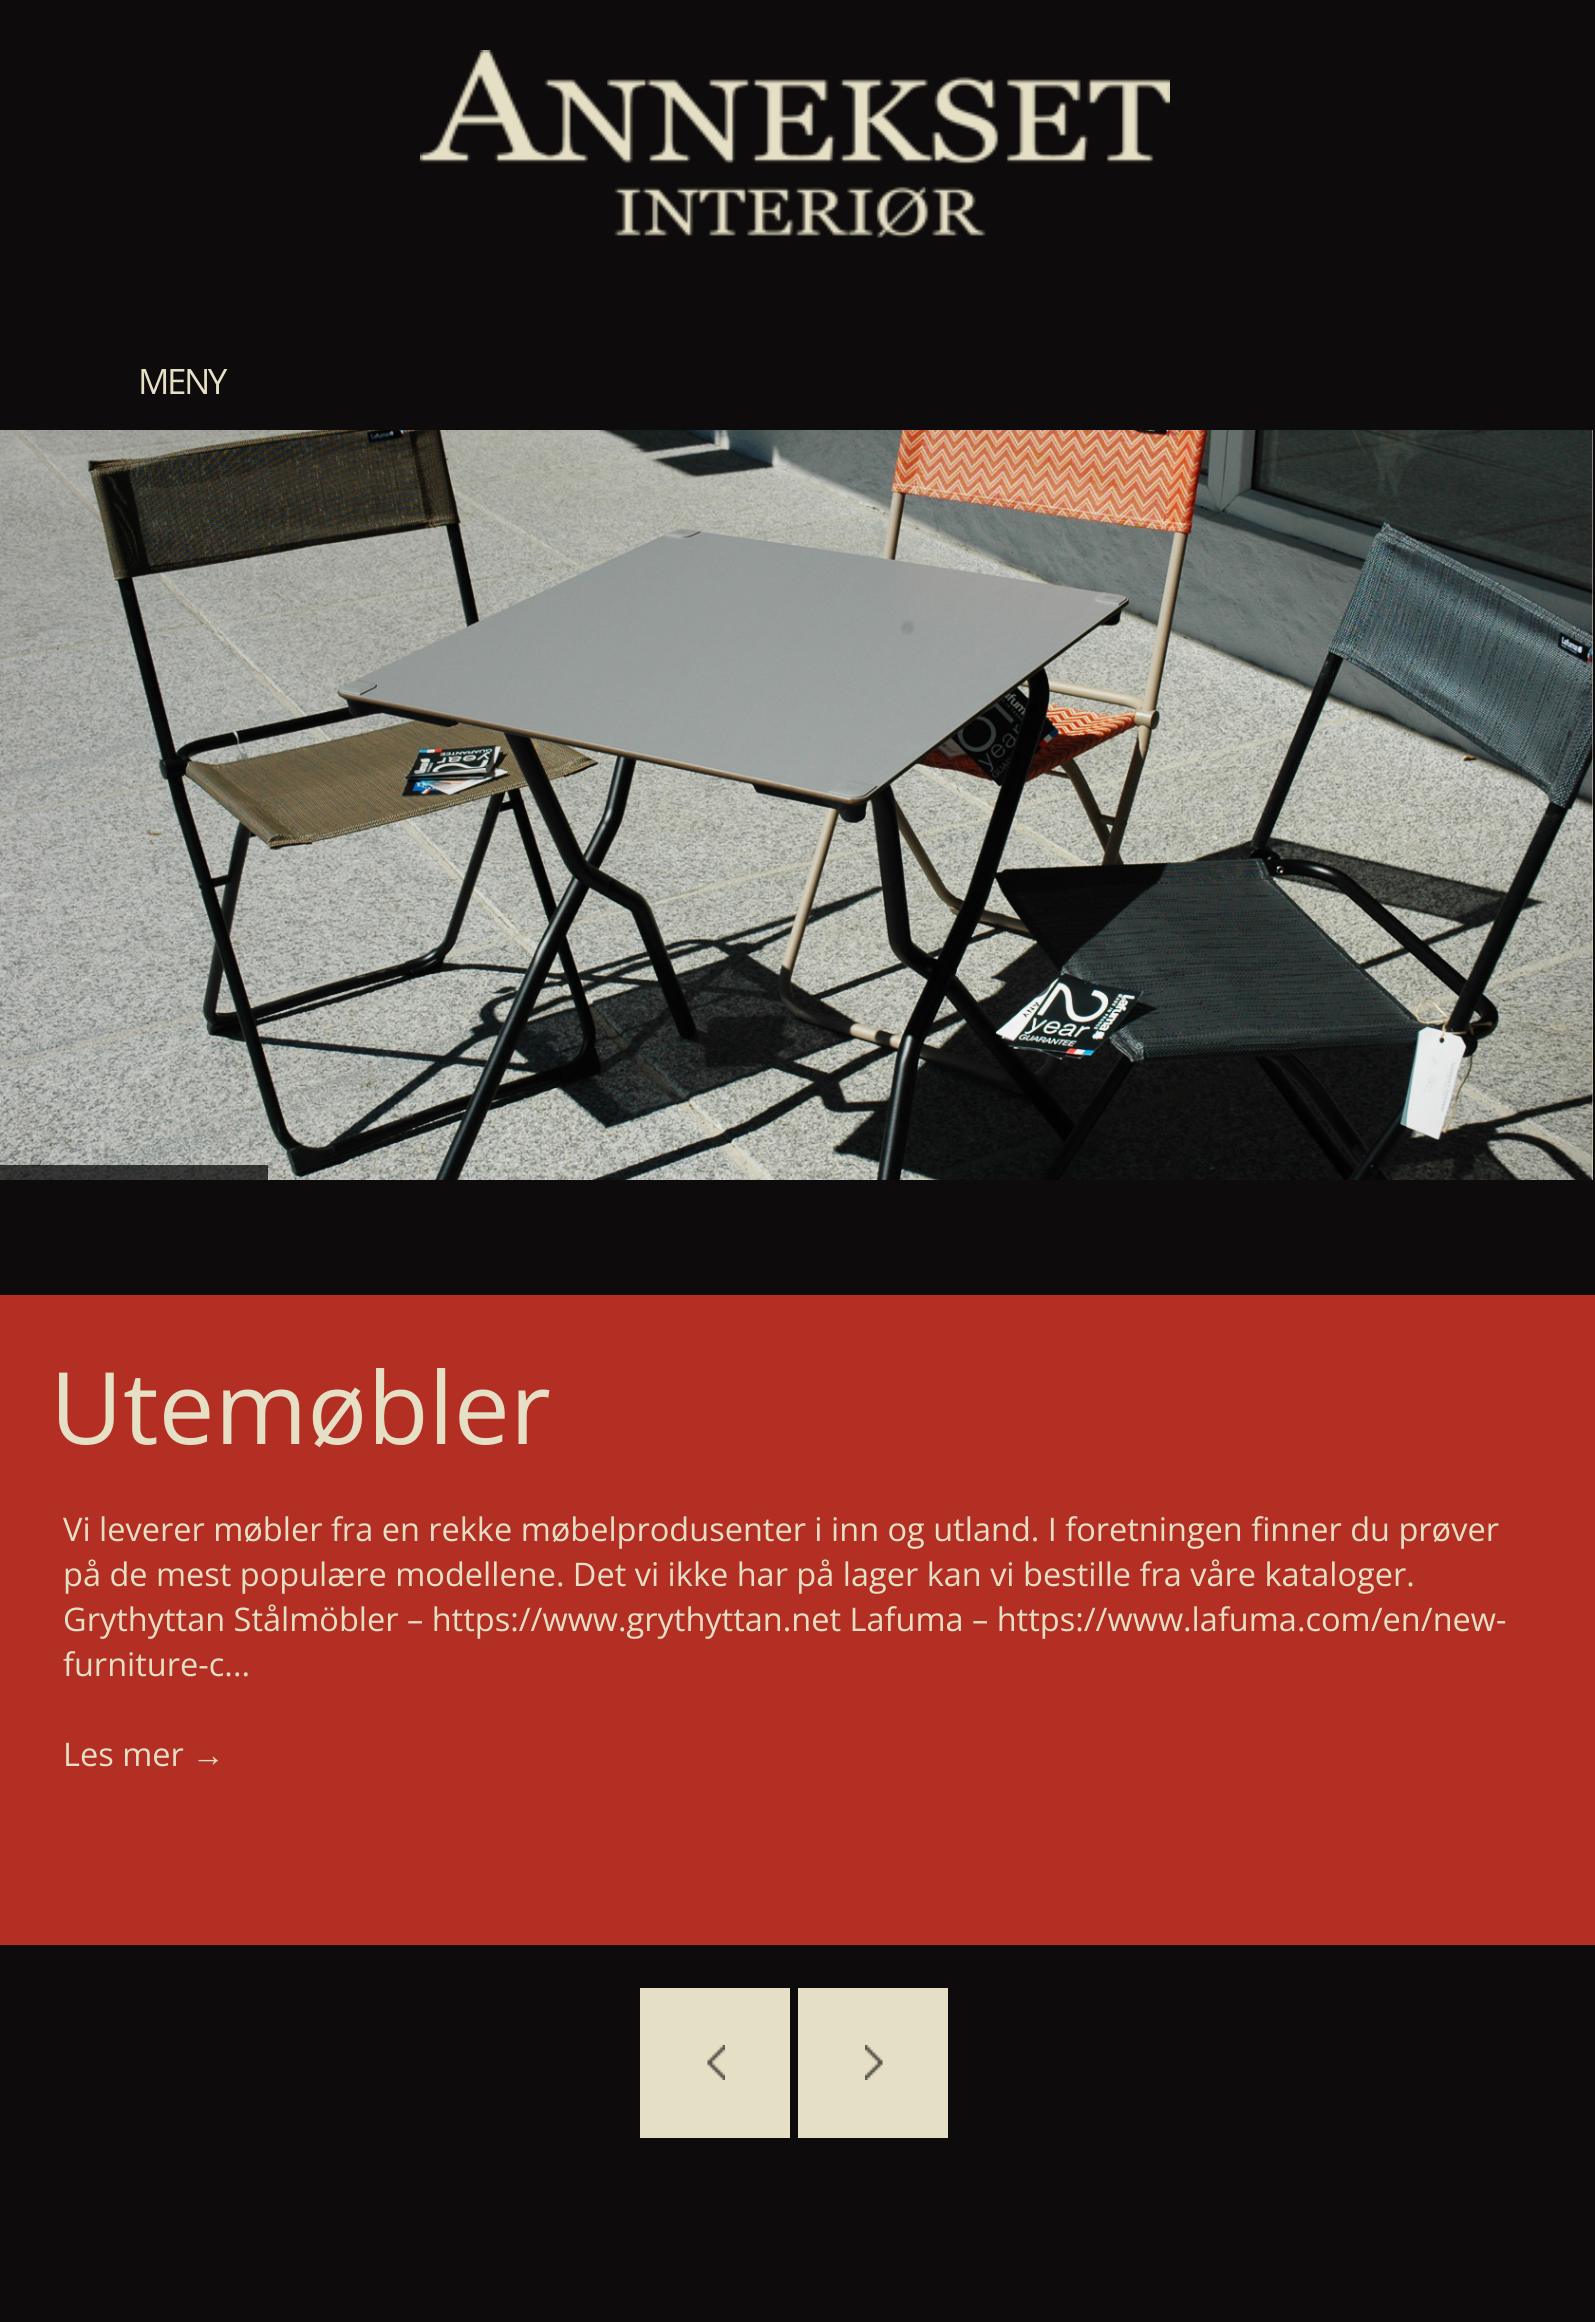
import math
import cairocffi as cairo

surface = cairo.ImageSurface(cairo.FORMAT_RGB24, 1595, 2322)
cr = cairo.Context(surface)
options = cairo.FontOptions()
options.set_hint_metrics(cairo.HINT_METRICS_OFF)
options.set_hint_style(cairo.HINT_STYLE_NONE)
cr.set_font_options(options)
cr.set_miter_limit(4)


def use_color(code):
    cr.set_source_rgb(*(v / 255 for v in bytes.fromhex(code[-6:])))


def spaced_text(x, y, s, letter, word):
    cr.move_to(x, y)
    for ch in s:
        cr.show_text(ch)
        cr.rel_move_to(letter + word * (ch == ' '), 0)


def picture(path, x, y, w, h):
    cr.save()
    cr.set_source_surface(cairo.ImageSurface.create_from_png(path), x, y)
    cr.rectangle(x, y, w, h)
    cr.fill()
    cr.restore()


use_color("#0d0b0b")
cr.paint()
picture("img1.png", 420, 50, 750, 188)
cr.select_font_face("Open Sans")
cr.set_font_size(35)
use_color("#e5dfc5")
spaced_text(138, 394, "MENY", -2.5, 0)
cr.rectangle(1592, 430, 1, 750)
cr.fill()
picture("img2.png", 0, 430, 1593, 750)
cr.set_source_rgba(0, 0, 0, 0.7)
cr.rectangle(0, 1165, 268, 15)
cr.fill()
use_color("#b32f23")
cr.rectangle(0, 1295, 1595, 650)
cr.fill()
cr.set_font_size(100)
use_color("#e5dfc5")
cr.move_to(50, 1444)
cr.show_text("Utemøbler")
cr.set_font_size(32.5)
cr.move_to(63, 1541)
cr.show_text("Vi leverer møbler fra en rekke møbelprodusenter i inn og utland. I foretningen finner du prøver")
cr.move_to(63, 1586)
cr.show_text("på de mest populære modellene. Det vi ikke har på lager kan vi bestille fra våre kataloger.")
cr.move_to(63, 1631)
cr.show_text("Grythyttan Stålmöbler – https://www.grythyttan.net Lafuma – https://www.lafuma.com/en/new-")
cr.move_to(63, 1676)
cr.show_text("furniture-c...")
cr.move_to(63, 1766)
cr.show_text("Les mer")
cr.select_font_face("Liberation Sans")
cr.move_to(192, 1766)
cr.show_text("→")
cr.rectangle(640, 1988, 150, 150)
cr.fill()
picture("img3.png", 707, 2045, 18, 35)
cr.rectangle(798, 1988, 150, 150)
cr.fill()
picture("img4.png", 865, 2045, 18, 35)
surface.write_to_png("result.png")
